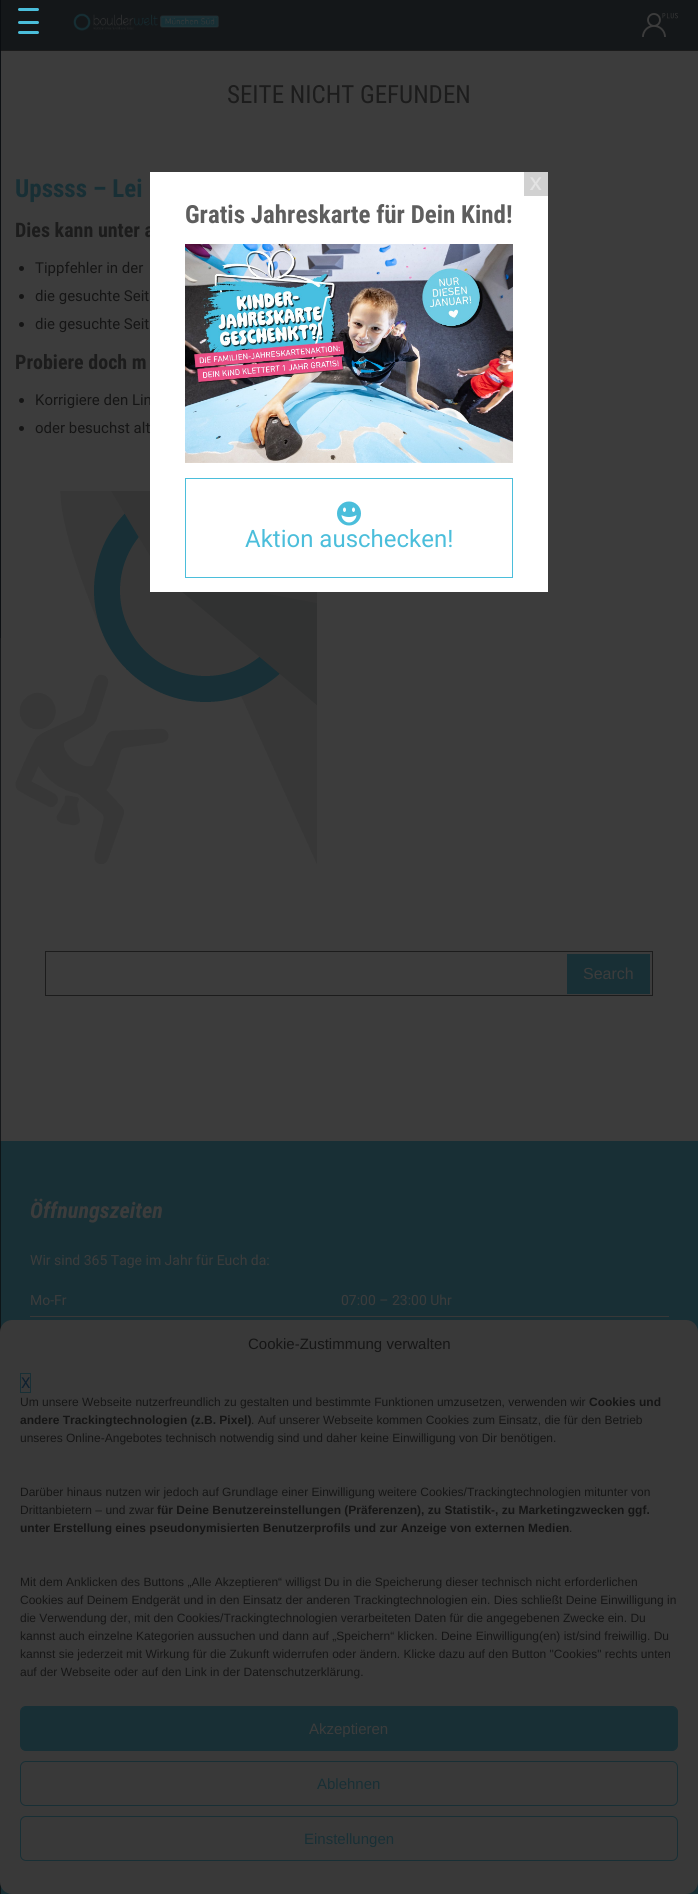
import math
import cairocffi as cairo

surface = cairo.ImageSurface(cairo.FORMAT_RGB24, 698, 1894)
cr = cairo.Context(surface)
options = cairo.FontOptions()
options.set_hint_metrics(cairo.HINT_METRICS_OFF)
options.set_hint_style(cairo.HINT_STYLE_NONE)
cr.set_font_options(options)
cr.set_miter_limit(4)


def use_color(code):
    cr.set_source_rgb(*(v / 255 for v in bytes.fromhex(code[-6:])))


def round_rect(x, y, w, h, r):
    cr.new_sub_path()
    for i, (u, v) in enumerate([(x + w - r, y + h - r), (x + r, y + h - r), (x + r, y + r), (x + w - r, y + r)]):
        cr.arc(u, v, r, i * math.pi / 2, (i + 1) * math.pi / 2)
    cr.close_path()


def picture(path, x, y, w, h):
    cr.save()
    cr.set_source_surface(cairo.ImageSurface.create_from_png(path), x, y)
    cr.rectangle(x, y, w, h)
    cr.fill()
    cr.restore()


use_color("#3c3c3c")
cr.paint()
use_color("#141719")
cr.rectangle(1, 0, 697, 50)
cr.fill()
use_color("#4bbedb")
round_rect(18, 21, 21, 3, 1.5)
cr.fill()
round_rect(18, 8, 21, 3, 1.5)
cr.fill()
round_rect(18, 31, 21, 3, 1.5)
cr.fill()
use_color("#0c0f12")
cr.rectangle(0, 52, 1, 586)
cr.fill()
use_color("#0a0d10")
cr.rectangle(0, 0, 1, 51)
cr.fill()
use_color("#1b1b1b")
cr.rectangle(0, 50, 698, 1)
cr.fill()
use_color("#0a0d10")
cr.rectangle(0, 50, 1, 1)
cr.fill()
picture("img1.png", 73, 13, 146, 18)
picture("img2.png", 642, 13, 36, 24)
use_color("#16181a")
cr.rectangle(0, 638, 1, 503)
cr.fill()
use_color("#0d0f12")
cr.rectangle(0, 51, 1, 1)
cr.fill()
cr.select_font_face("Roboto Condensed")
cr.set_font_size(25)
use_color("#1c1c1c")
cr.move_to(227, 103)
cr.show_text("SEITE NICHT GEFUNDEN")
cr.select_font_face("Roboto Condensed", cairo.FONT_SLANT_NORMAL, cairo.FONT_WEIGHT_BOLD)
use_color("#182f35")
cr.move_to(15, 197)
cr.show_text("Upssss – Lei")
cr.set_font_size(20)
use_color("#1c1c1c")
cr.move_to(15, 237)
cr.show_text("Dies kann unter a")
use_color("#151515")
cr.new_path()
cr.arc(21.5, 268.5, 2.5, 0, 2 * math.pi)
cr.fill()
cr.select_font_face("Roboto")
cr.set_font_size(15)
cr.move_to(35, 273)
cr.show_text("Tippfehler in der")
cr.new_path()
cr.arc(21.5, 296.5, 2.5, 0, 2 * math.pi)
cr.fill()
cr.move_to(35, 301)
cr.show_text("die gesuchte Seit")
cr.new_path()
cr.arc(21.5, 324.5, 2.5, 0, 2 * math.pi)
cr.fill()
cr.move_to(35, 329)
cr.show_text("die gesuchte Seit")
cr.select_font_face("Roboto Condensed", cairo.FONT_SLANT_NORMAL, cairo.FONT_WEIGHT_BOLD)
cr.set_font_size(20)
use_color("#1c1c1c")
cr.move_to(15, 369)
cr.show_text("Probiere doch m")
use_color("#151515")
cr.new_path()
cr.arc(21.5, 400.5, 2.5, 0, 2 * math.pi)
cr.fill()
cr.select_font_face("Roboto")
cr.set_font_size(15)
cr.move_to(35, 405)
cr.show_text("Korrigiere den Lin")
cr.new_path()
cr.arc(21.5, 428.5, 2.5, 0, 2 * math.pi)
cr.fill()
cr.move_to(35, 433)
cr.show_text("oder besuchst alt")
picture("img3.png", 15, 491, 302, 373)
cr.rectangle(45.5, 951.5, 607, 44)
use_color("#1c1c1c")
cr.set_line_width(1)
cr.stroke()
use_color("#182f35")
cr.rectangle(567, 954, 83, 40)
cr.fill()
cr.select_font_face("Liberation Sans")
cr.set_font_size(16)
use_color("#3c3c3c")
cr.move_to(583, 979)
cr.show_text("Search")
use_color("#182f35")
cr.rectangle(1, 1141, 697, 753)
cr.fill()
use_color("#0d1518")
cr.rectangle(0, 1141, 1, 753)
cr.fill()
cr.select_font_face("Roboto Condensed", cairo.FONT_SLANT_ITALIC, cairo.FONT_WEIGHT_BOLD)
cr.set_font_size(22)
use_color("#3c3c3c")
cr.move_to(30, 1218)
cr.show_text("Öffnungszeiten")
cr.select_font_face("Roboto")
cr.set_font_size(14)
cr.move_to(30, 1265)
cr.show_text("Wir sind 365 Tage im Jahr für Euch da:")
cr.move_to(30, 1305)
cr.show_text("Mo-Fr")
use_color("#383838")
cr.rectangle(30, 1316, 639, 1)
cr.fill()
use_color("#3c3c3c")
cr.move_to(341, 1305)
cr.show_text("07:00 – 23:00 Uhr")
use_color("#ffffff")
cr.rectangle(150, 172, 398, 420)
cr.fill()
use_color("#d1d1d1")
cr.rectangle(524, 172, 24, 24)
cr.fill()
picture("img4.png", 530, 177, 12, 13)
cr.select_font_face("Roboto Condensed", cairo.FONT_SLANT_NORMAL, cairo.FONT_WEIGHT_BOLD)
cr.set_font_size(25)
use_color("#5e5e5e")
cr.move_to(185, 223)
cr.show_text("Gratis Jahreskarte für Dein Kind!")
picture("img5.png", 185, 244, 328, 219)
cr.rectangle(185.5, 478.5, 327, 99)
use_color("#4bbedb")
cr.stroke()
picture("img6.png", 337, 501, 24, 25)
cr.select_font_face("Roboto")
cr.set_font_size(24)
cr.move_to(245, 547)
cr.show_text("Aktion auschecken!")
use_color("#393939")
round_rect(0, 1320, 698, 574, 12)
cr.fill()
cr.select_font_face("Liberation Sans")
cr.set_font_size(15)
use_color("#151515")
cr.move_to(248, 1349)
cr.show_text("Cookie-Zustimmung verwalten")
cr.rectangle(20.5, 1373.5, 10, 19)
use_color("#182f35")
cr.stroke()
cr.select_font_face("Roboto")
use_color("#0f202f")
cr.move_to(21, 1388)
cr.show_text("X")
cr.select_font_face("Liberation Sans")
cr.set_font_size(12)
use_color("#151515")
cr.move_to(20, 1406)
cr.show_text("Um unsere Webseite nutzerfreundlich zu gestalten und bestimmte Funktionen umzusetzen, verwenden wir")
cr.select_font_face("Liberation Sans", cairo.FONT_SLANT_NORMAL, cairo.FONT_WEIGHT_BOLD)
cr.move_to(589, 1406)
cr.show_text("Cookies und")
cr.move_to(20, 1424)
cr.show_text("andere Trackingtechnologien (z.B. Pixel)")
cr.select_font_face("Liberation Sans")
cr.move_to(251, 1424)
cr.show_text(". Auf unserer Webseite kommen Cookies zum Einsatz, die für den Betrieb")
cr.move_to(20, 1442)
cr.show_text("unseres Online-Angebotes technisch notwendig sind und daher keine Einwilligung von Dir benötigen.")
cr.move_to(20, 1496)
cr.show_text("Darüber hinaus nutzen wir jedoch auf Grundlage einer Einwilligung weitere Cookies/Trackingtechnologien mitunter von")
cr.move_to(20, 1514)
cr.show_text("Drittanbietern – und zwar")
cr.select_font_face("Liberation Sans", cairo.FONT_SLANT_NORMAL, cairo.FONT_WEIGHT_BOLD)
cr.move_to(157, 1514)
cr.show_text("für Deine Benutzereinstellungen (Präferenzen), zu Statistik-, zu Marketingzwecken ggf.")
cr.move_to(20, 1532)
cr.show_text("unter Erstellung eines pseudonymisierten Benutzerprofils und zur Anzeige von externen Medien")
cr.select_font_face("Liberation Sans")
cr.move_to(569, 1532)
cr.show_text(".")
cr.move_to(20, 1586)
cr.show_text("Mit dem Anklicken des Buttons „Alle Akzeptieren“ willigst Du in die Speicherung dieser technisch nicht erforderlichen")
cr.move_to(20, 1604)
cr.show_text("Cookies auf Deinem Endgerät und in den Einsatz der anderen Trackingtechnologien ein. Dies schließt Deine Einwilligung in")
cr.move_to(20, 1622)
cr.show_text("die Verwendung der, mit den Cookies/Trackingtechnologien verarbeiteten Daten für die angegebenen Zwecke ein. Du")
cr.move_to(20, 1640)
cr.show_text("kannst auch einzelne Kategorien aussuchen und dann auf „Speichern“ klicken. Deine Einwilligung(en) ist/sind freiwillig. Du")
cr.move_to(20, 1658)
cr.show_text("kannst sie jederzeit mit Wirkung für die Zukunft widerrufen oder ändern. Klicke dazu auf den Button \"Cookies\" rechts unten")
cr.move_to(20, 1676)
cr.show_text("auf der Webseite oder auf den Link in der Datenschutzerklärung.")
use_color("#182f35")
round_rect(20.5, 1706.5, 657, 44, 5.5)
cr.fill_preserve()
cr.stroke()
cr.set_font_size(15)
use_color("#3c3c3c")
cr.move_to(309, 1734)
cr.show_text("Akzeptieren")
round_rect(20.5, 1761.5, 657, 44, 5.5)
use_color("#182f35")
cr.stroke()
cr.move_to(317, 1789)
cr.show_text("Ablehnen")
round_rect(20.5, 1816.5, 657, 44, 5.5)
cr.stroke()
cr.move_to(304, 1844)
cr.show_text("Einstellungen")
surface.write_to_png("result.png")
